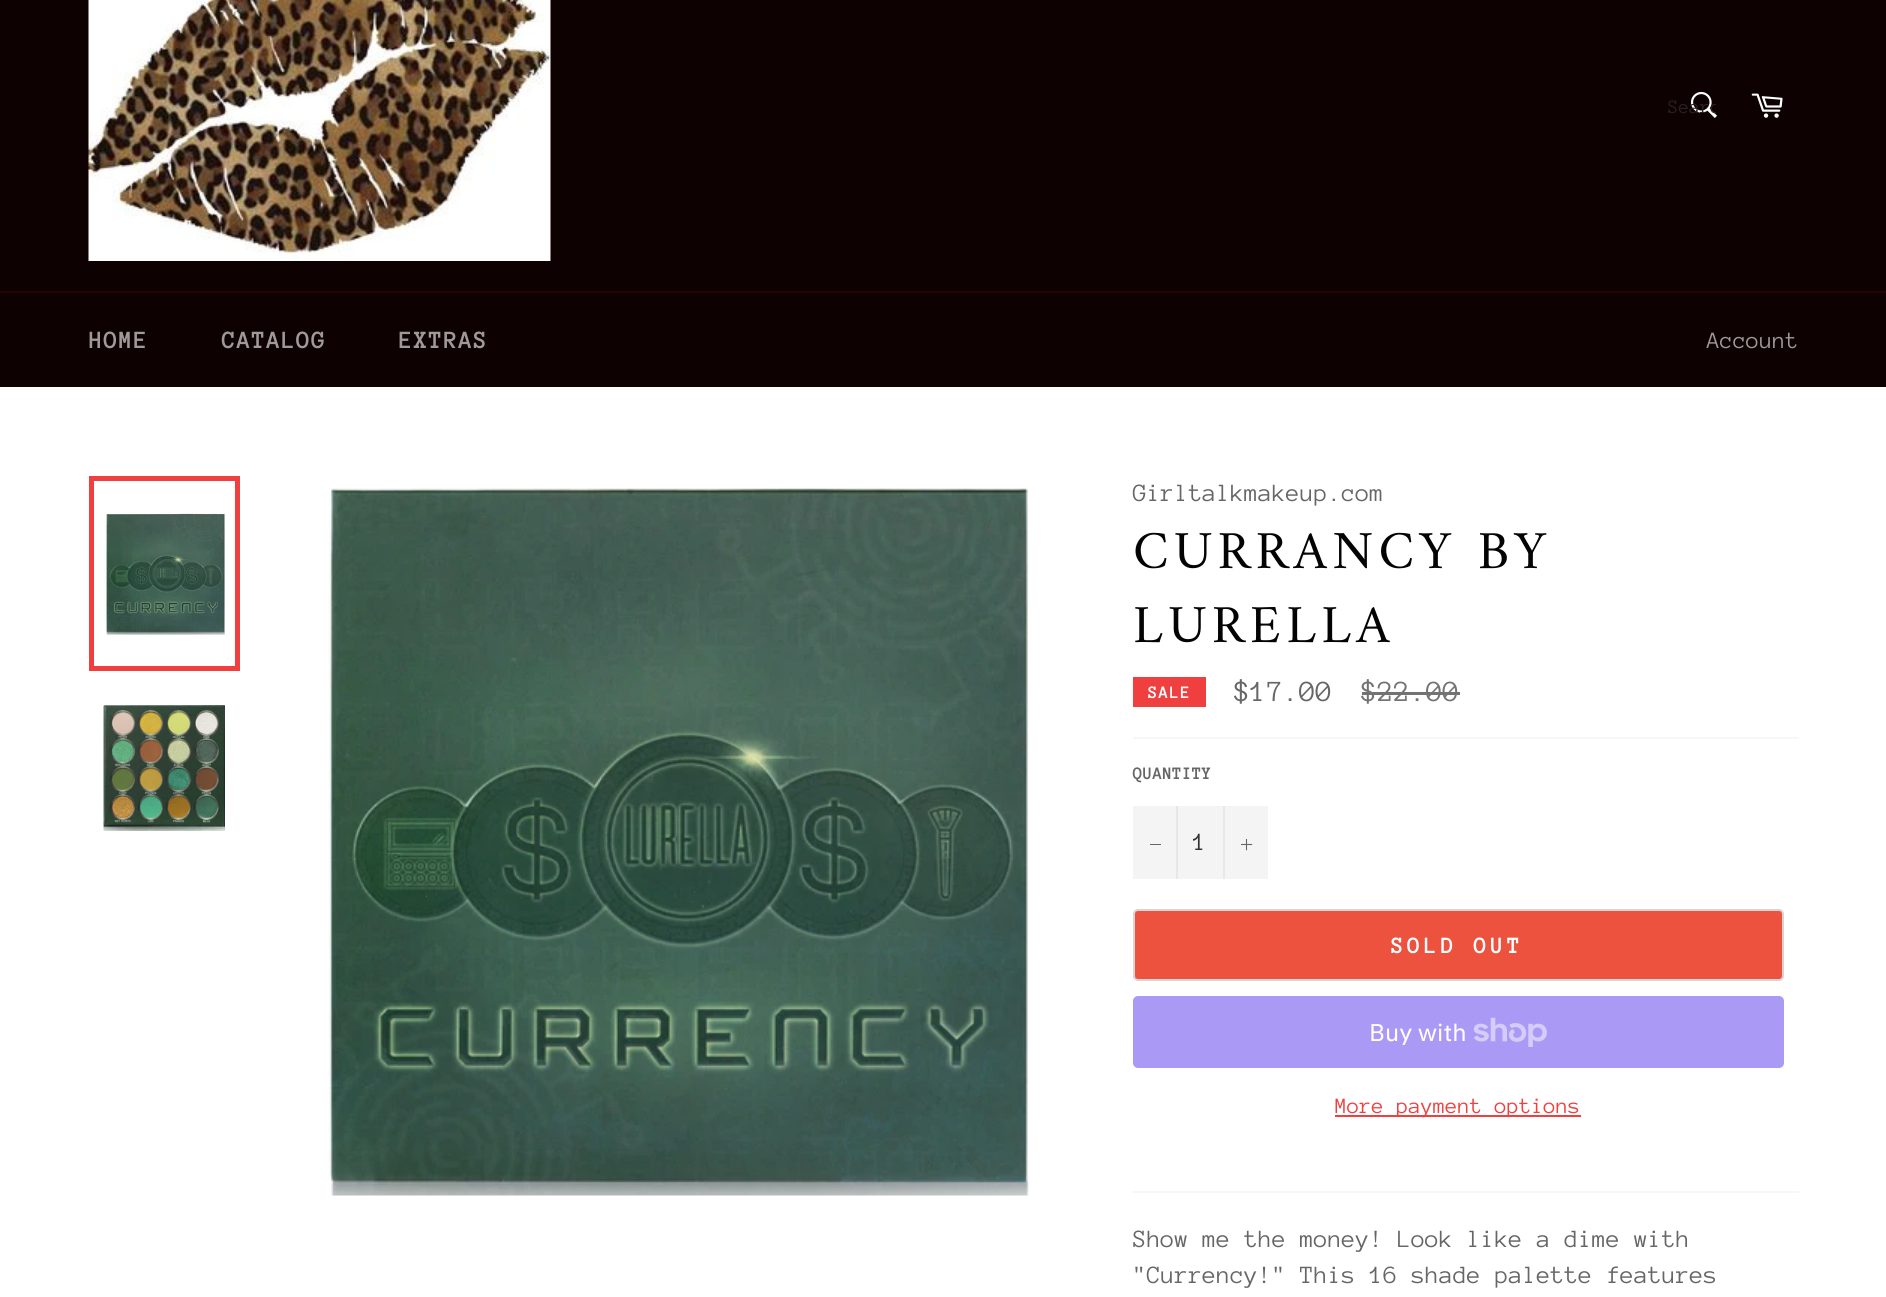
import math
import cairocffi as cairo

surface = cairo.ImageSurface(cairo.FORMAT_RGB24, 1886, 1297)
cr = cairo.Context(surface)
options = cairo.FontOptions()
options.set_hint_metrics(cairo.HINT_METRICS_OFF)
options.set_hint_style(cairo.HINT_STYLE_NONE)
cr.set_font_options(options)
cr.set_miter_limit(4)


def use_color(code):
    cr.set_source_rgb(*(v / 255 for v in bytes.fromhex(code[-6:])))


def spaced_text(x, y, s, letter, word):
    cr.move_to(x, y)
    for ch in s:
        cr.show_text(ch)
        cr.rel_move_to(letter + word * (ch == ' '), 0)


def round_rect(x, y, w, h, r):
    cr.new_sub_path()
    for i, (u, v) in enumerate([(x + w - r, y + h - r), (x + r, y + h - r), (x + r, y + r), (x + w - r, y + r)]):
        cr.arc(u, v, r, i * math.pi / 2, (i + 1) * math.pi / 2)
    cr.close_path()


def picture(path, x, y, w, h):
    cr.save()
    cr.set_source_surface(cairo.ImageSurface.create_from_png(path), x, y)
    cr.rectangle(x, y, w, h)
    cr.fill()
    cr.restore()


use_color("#0e0101")
cr.paint()
picture("img1.png", 88, 0, 463, 261)
picture("img2.png", 1690, 91, 27, 27)
cr.save()
cr.rectangle(1668, 98, 48, 19)
cr.clip()
cr.select_font_face("Anonymous Pro")
cr.set_font_size(19.5)
use_color("#2b2020")
cr.move_to(1668, 113)
cr.show_text("Searc")
cr.restore()
picture("img3.png", 1751, 93, 32, 25)
use_color("#260303")
cr.rectangle(0, 291, 1886, 2)
cr.fill()
cr.select_font_face("Anonymous Pro", cairo.FONT_SLANT_NORMAL, cairo.FONT_WEIGHT_BOLD)
cr.set_font_size(25.5)
use_color("#9f9999")
spaced_text(89, 348, "HOME", 1, 0)
spaced_text(222, 348, "CATALOG", 1, 0)
spaced_text(399, 348, "EXTRAS", 1, 0)
cr.select_font_face("Anonymous Pro")
cr.set_font_size(24)
cr.move_to(1707, 348)
cr.show_text("Account")
use_color("#ffffff")
cr.rectangle(0, 387, 1886, 910)
cr.fill()
picture("img4.png", 104, 511, 121, 124)
cr.rectangle(91.5, 478.5, 146, 190)
use_color("#ef3f3f")
cr.set_line_width(5)
cr.stroke()
picture("img5.png", 103, 705, 122, 126)
picture("img6.png", 328, 488, 701, 708)
cr.set_font_size(25.5)
use_color("#666666")
cr.move_to(1133, 501)
cr.show_text("Girltalkmakeup.com")
cr.select_font_face("Amiri")
cr.set_font_size(54)
use_color("#030303")
spaced_text(1133, 568, "CURRANCY BY", 5.4, 0)
spaced_text(1133, 642, "LURELLA", 5.4, 0)
use_color("#ef3f3f")
cr.rectangle(1133, 677, 73, 30)
cr.fill()
cr.select_font_face("Anonymous Pro", cairo.FONT_SLANT_NORMAL, cairo.FONT_WEIGHT_BOLD)
cr.set_font_size(18)
use_color("#ffffff")
spaced_text(1148, 698, "SALE", 1, 0)
cr.select_font_face("Anonymous Pro")
cr.set_font_size(30)
use_color("#666666")
cr.move_to(1234, 701)
cr.show_text("$17.00")
use_color("#737373")
cr.move_to(1361, 701)
cr.show_text("$22.00")
cr.rectangle(1362, 692, 98, 3)
cr.fill()
use_color("#f7f7f7")
cr.rectangle(1133, 737, 666, 2)
cr.fill()
cr.select_font_face("Anonymous Pro", cairo.FONT_SLANT_NORMAL, cairo.FONT_WEIGHT_BOLD)
cr.set_font_size(18)
use_color("#666666")
cr.move_to(1133, 779)
cr.show_text("QUANTITY")
use_color("#f4f4f4")
cr.rectangle(1133, 806, 135, 73)
cr.fill()
use_color("#e7e7e7")
cr.rectangle(1176, 806, 2, 73)
cr.fill()
use_color("#666666")
cr.rectangle(1150, 844, 11, 1)
cr.fill()
cr.select_font_face("Anonymous Pro")
cr.set_font_size(25.5)
use_color("#333333")
cr.move_to(1193, 850)
cr.show_text("1")
use_color("#e7e7e7")
cr.rectangle(1223, 806, 2, 73)
cr.fill()
picture("img7.png", 1241, 839, 12, 12)
use_color("#ec523e")
round_rect(1134, 910, 649, 70, 4)
cr.fill_preserve()
use_color("#d5d5d5")
cr.set_line_width(2)
cr.stroke()
cr.select_font_face("Anonymous Pro", cairo.FONT_SLANT_NORMAL, cairo.FONT_WEIGHT_BOLD)
cr.set_font_size(24)
use_color("#ffffff")
spaced_text(1391, 953, "SOLD OUT", 3.5, 0)
use_color("#aa99f5")
round_rect(1133, 996, 651, 72, 5)
cr.fill()
cr.select_font_face("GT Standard")
use_color("#ffffff")
cr.move_to(1369, 1041)
cr.show_text("Buy with")
picture("img8.png", 1473, 1017, 74, 30)
use_color("#ef3f3f")
cr.rectangle(1335, 1115, 246, 2)
cr.fill()
cr.select_font_face("Anonymous Pro")
cr.set_font_size(22.5)
cr.move_to(1335, 1113)
cr.show_text("More payment options")
use_color("#f7f7f7")
cr.rectangle(1133, 1191, 666, 2)
cr.fill()
cr.set_font_size(25.5)
use_color("#666666")
cr.move_to(1133, 1247)
cr.show_text("Show me the money! Look like a dime with")
cr.move_to(1133, 1283)
cr.show_text("\"Currency!\" This 16 shade palette features")
surface.write_to_png("result.png")
